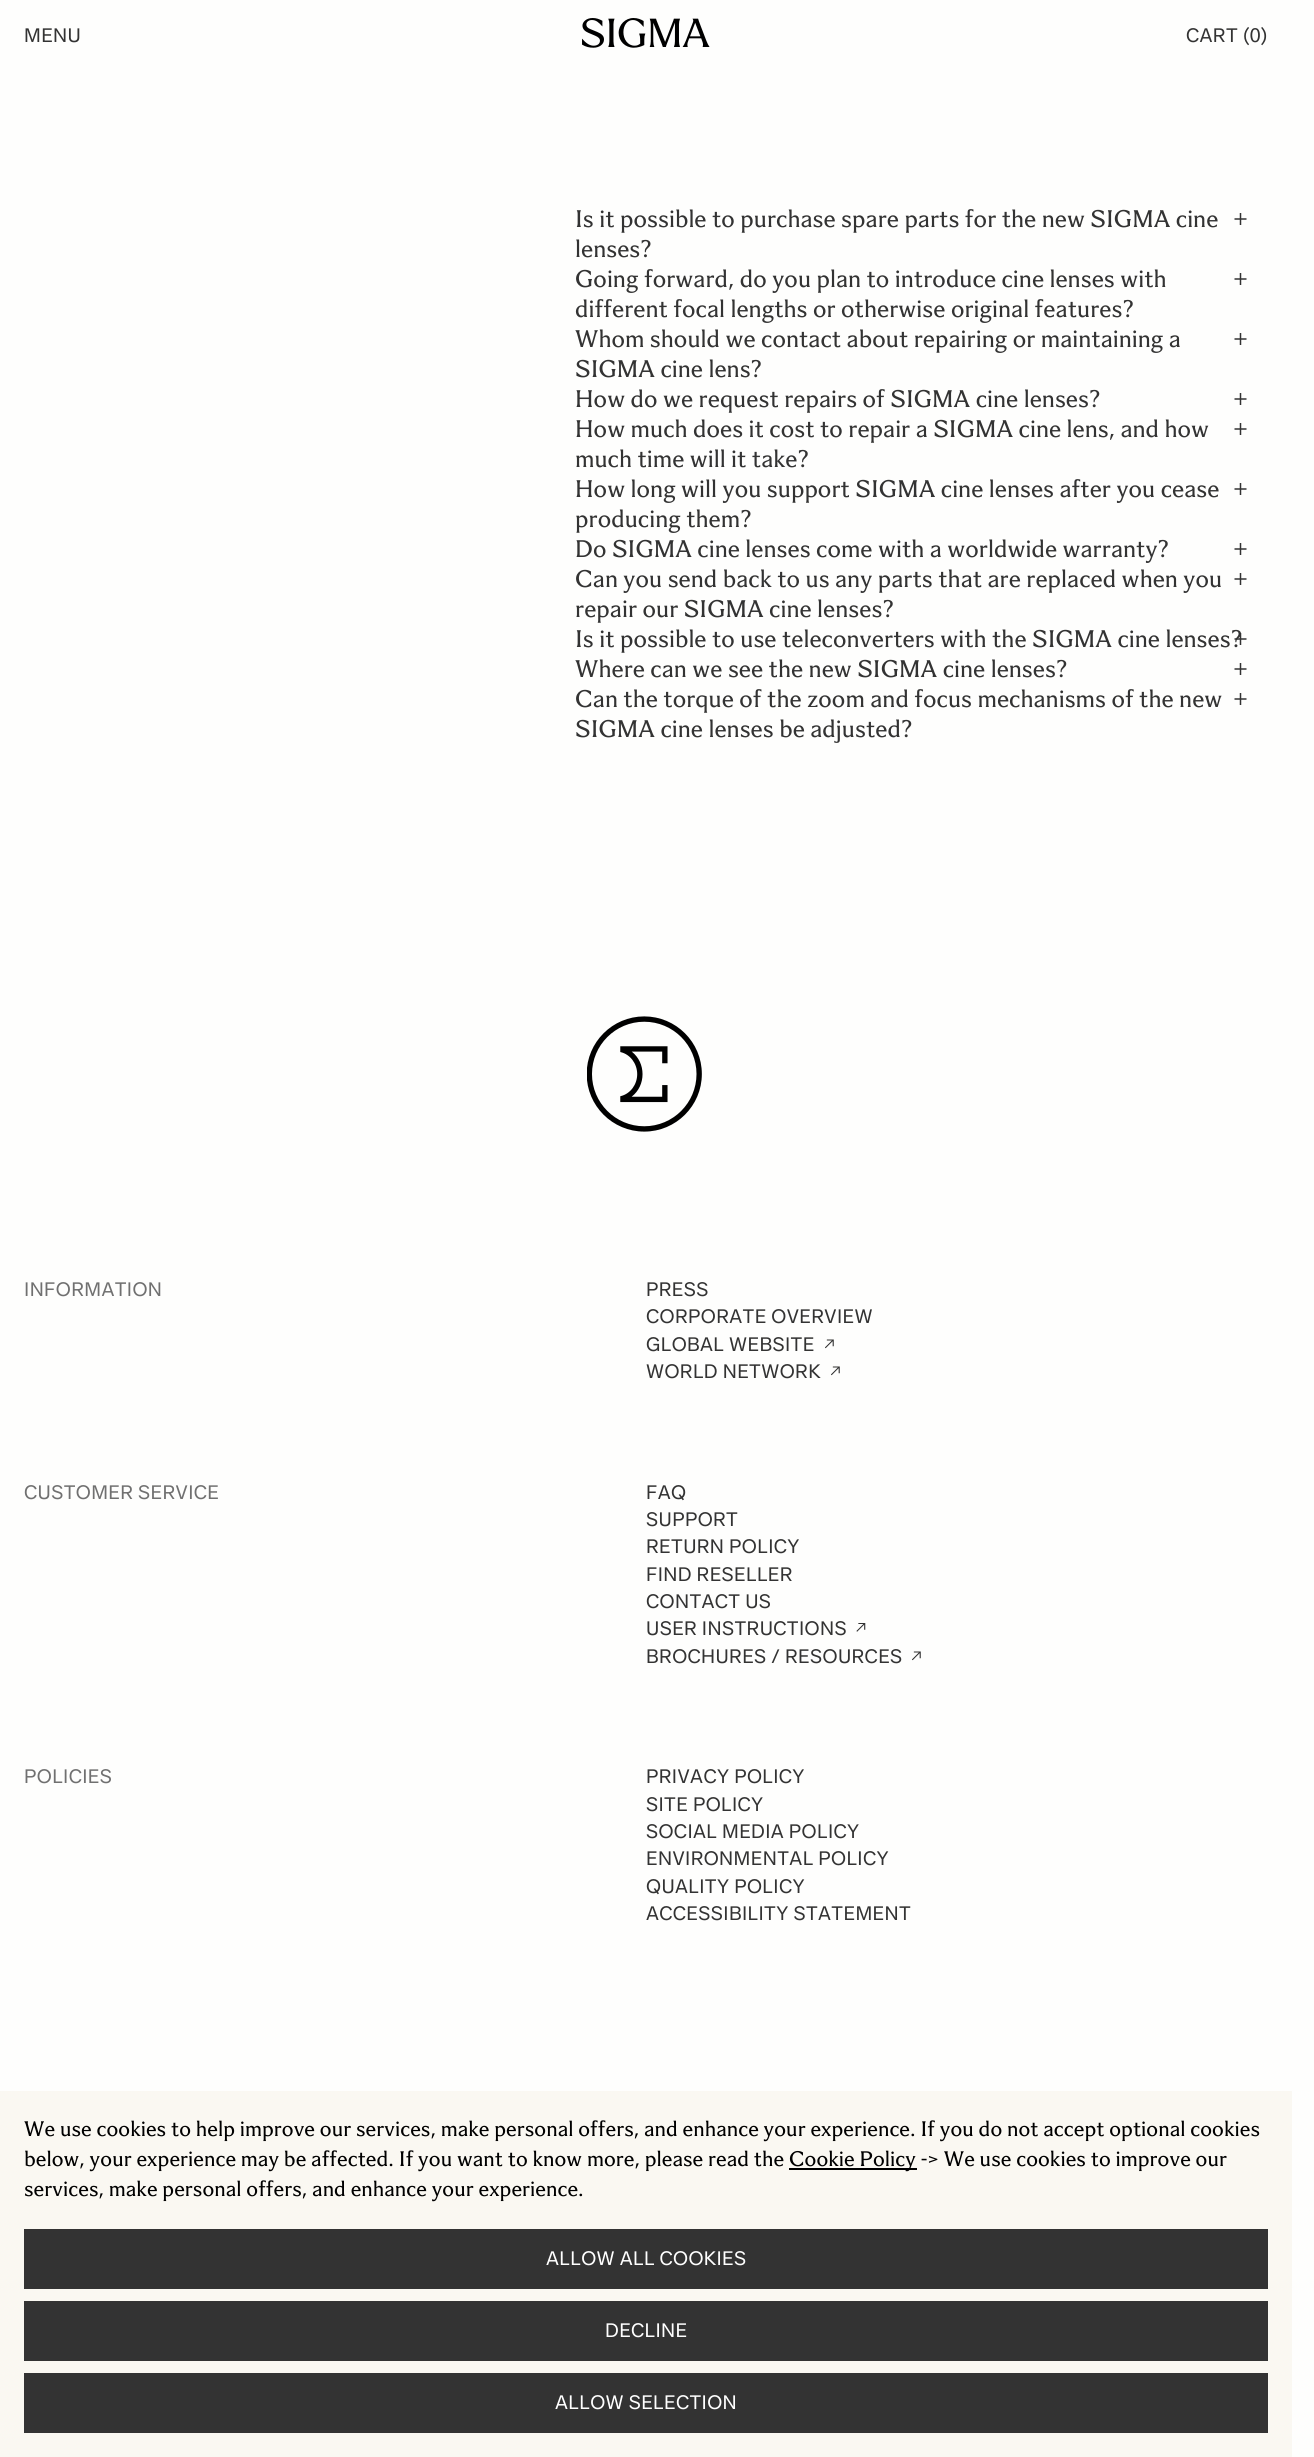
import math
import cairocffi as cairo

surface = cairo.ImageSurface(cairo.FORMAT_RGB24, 1314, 2457)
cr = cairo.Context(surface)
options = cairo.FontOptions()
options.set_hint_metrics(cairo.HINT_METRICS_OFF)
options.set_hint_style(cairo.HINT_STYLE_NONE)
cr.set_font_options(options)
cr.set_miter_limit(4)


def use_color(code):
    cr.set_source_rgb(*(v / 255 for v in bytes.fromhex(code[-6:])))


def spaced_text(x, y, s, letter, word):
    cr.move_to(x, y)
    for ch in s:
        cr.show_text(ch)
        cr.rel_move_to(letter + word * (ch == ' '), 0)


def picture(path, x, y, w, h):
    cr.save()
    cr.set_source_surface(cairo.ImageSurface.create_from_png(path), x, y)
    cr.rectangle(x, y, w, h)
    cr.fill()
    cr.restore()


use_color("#fefefd")
cr.paint()
cr.select_font_face("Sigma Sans")
cr.set_font_size(19.5)
use_color("#333333")
spaced_text(24, 42, "MENU", 0.4, 0)
picture("img1.png", 582, 18, 128, 30)
spaced_text(1186, 42, "CART (0)", 0.4, 0)
cr.select_font_face("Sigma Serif")
cr.set_font_size(24)
spaced_text(575, 227, "Is it possible to purchase spare parts for the new SIGMA cine", 0.12, 0)
picture("img2.png", 1234, 213, 13, 12)
spaced_text(575, 257, "lenses?", 0.12, 0)
spaced_text(575, 287, "Going forward, do you plan to introduce cine lenses with", 0.12, 0)
picture("img2.png", 1234, 273, 13, 12)
spaced_text(575, 317, "different focal lengths or otherwise original features?", 0.12, 0)
spaced_text(575, 347, "Whom should we contact about repairing or maintaining a", 0.12, 0)
picture("img2.png", 1234, 333, 13, 12)
spaced_text(575, 377, "SIGMA cine lens?", 0.12, 0)
spaced_text(575, 407, "How do we request repairs of SIGMA cine lenses?", 0.12, 0)
picture("img2.png", 1234, 393, 13, 12)
spaced_text(575, 437, "How much does it cost to repair a SIGMA cine lens, and how", 0.12, 0)
picture("img2.png", 1234, 423, 13, 12)
spaced_text(575, 467, "much time will it take?", 0.12, 0)
spaced_text(575, 497, "How long will you support SIGMA cine lenses after you cease", 0.12, 0)
picture("img2.png", 1234, 483, 13, 12)
spaced_text(575, 527, "producing them?", 0.12, 0)
spaced_text(575, 557, "Do SIGMA cine lenses come with a worldwide warranty?", 0.12, 0)
picture("img2.png", 1234, 543, 13, 12)
spaced_text(575, 587, "Can you send back to us any parts that are replaced when you", 0.12, 0)
picture("img2.png", 1234, 573, 13, 12)
spaced_text(575, 617, "repair our SIGMA cine lenses?", 0.12, 0)
spaced_text(575, 647, "Is it possible to use teleconverters with the SIGMA cine lenses?", 0.12, 0)
picture("img3.png", 1234, 633, 13, 12)
spaced_text(575, 677, "Where can we see the new SIGMA cine lenses?", 0.12, 0)
picture("img2.png", 1234, 663, 13, 12)
spaced_text(575, 707, "Can the torque of the zoom and focus mechanisms of the new", 0.12, 0)
picture("img2.png", 1234, 693, 13, 12)
spaced_text(575, 737, "SIGMA cine lenses be adjusted?", 0.12, 0)
picture("img4.png", 587, 1016, 115, 116)
cr.select_font_face("Sigma Sans")
cr.set_font_size(19.5)
use_color("#707070")
spaced_text(24, 1296, "INFORMATION", 0.4, 0)
use_color("#333333")
spaced_text(646, 1296, "PRESS", 0.4, 0)
spaced_text(646, 1323, "CORPORATE OVERVIEW", 0.4, 0)
spaced_text(646, 1351, "GLOBAL WEBSITE", 0.4, 0)
picture("img5.png", 825, 1339, 9, 10)
spaced_text(646, 1378, "WORLD NETWORK", 0.4, 0)
picture("img5.png", 831, 1366, 9, 10)
use_color("#707070")
spaced_text(24, 1499, "CUSTOMER SERVICE", 0.4, 0)
use_color("#333333")
spaced_text(646, 1499, "FAQ", 0.4, 0)
spaced_text(646, 1526, "SUPPORT", 0.4, 0)
spaced_text(646, 1553, "RETURN POLICY", 0.4, 0)
spaced_text(646, 1581, "FIND RESELLER", 0.4, 0)
spaced_text(646, 1608, "CONTACT US", 0.4, 0)
spaced_text(646, 1635, "USER INSTRUCTIONS", 0.4, 0)
picture("img6.png", 856, 1623, 10, 9)
spaced_text(646, 1663, "BROCHURES / RESOURCES", 0.4, 0)
picture("img5.png", 912, 1651, 9, 10)
use_color("#707070")
spaced_text(24, 1783, "POLICIES", 0.4, 0)
use_color("#333333")
spaced_text(646, 1783, "PRIVACY POLICY", 0.4, 0)
spaced_text(646, 1811, "SITE POLICY", 0.4, 0)
spaced_text(646, 1838, "SOCIAL MEDIA POLICY", 0.4, 0)
spaced_text(646, 1865, "ENVIRONMENTAL POLICY", 0.4, 0)
spaced_text(646, 1893, "QUALITY POLICY", 0.4, 0)
spaced_text(646, 1920, "ACCESSIBILITY STATEMENT", 0.4, 0)
use_color("#faf8f2")
cr.rectangle(0, 2091, 1292, 366)
cr.fill()
cr.select_font_face("Sigma Serif")
cr.set_font_size(21)
use_color("#000000")
spaced_text(24, 2136, "We use cookies to help improve our services, make personal offers, and enhance your experience. If you do not accept optional cookies", 0.12, 0)
spaced_text(24, 2166, "below, your experience may be affected. If you want to know more, please read the", 0.12, 0)
cr.rectangle(789, 2168, 128, 2)
cr.fill()
spaced_text(789, 2166, "Cookie Policy -> We use cookies to improve our", 0.12, 0)
spaced_text(24, 2196, "services, make personal offers, and enhance your experience.", 0.12, 0)
use_color("#333333")
cr.rectangle(24, 2229, 1244, 60)
cr.fill()
cr.select_font_face("Sigma Sans")
cr.set_font_size(19.5)
use_color("#ffffff")
spaced_text(546, 2265, "ALLOW ALL COOKIES", 0.4, 0)
use_color("#333333")
cr.rectangle(24, 2301, 1244, 60)
cr.fill()
use_color("#ffffff")
spaced_text(605, 2337, "DECLINE", 0.4, 0)
use_color("#333333")
cr.rectangle(24, 2373, 1244, 60)
cr.fill()
use_color("#ffffff")
spaced_text(555, 2409, "ALLOW SELECTION", 0.4, 0)
surface.write_to_png("result.png")
